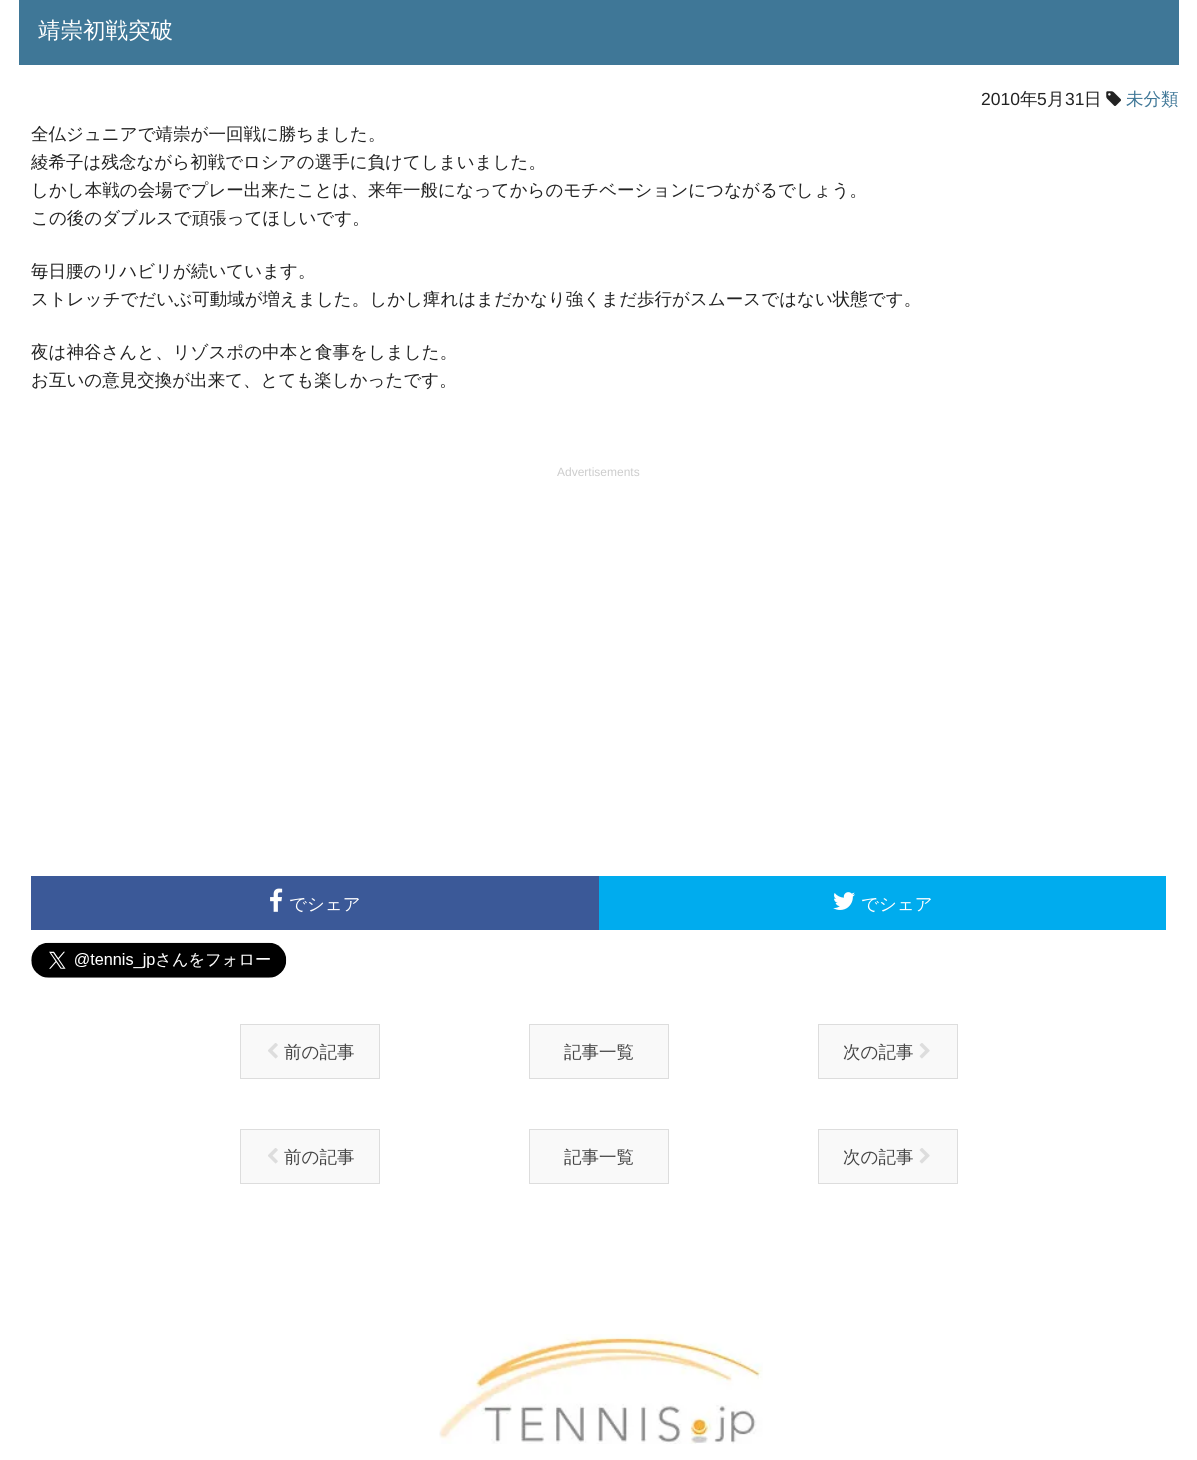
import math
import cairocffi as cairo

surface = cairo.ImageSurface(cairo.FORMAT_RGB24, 1197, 1460)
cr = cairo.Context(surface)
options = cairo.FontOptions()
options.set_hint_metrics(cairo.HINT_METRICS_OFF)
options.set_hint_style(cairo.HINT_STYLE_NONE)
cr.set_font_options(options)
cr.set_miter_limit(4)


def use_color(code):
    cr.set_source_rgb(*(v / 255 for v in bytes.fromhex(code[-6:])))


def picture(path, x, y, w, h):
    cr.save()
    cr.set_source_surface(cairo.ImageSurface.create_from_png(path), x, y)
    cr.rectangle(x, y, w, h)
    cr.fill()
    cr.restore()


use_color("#ffffff")
cr.paint()
use_color("#3f7797")
cr.rectangle(19, 0, 1160, 65)
cr.fill()
cr.select_font_face("WenQuanYi Zen Hei Medium")
cr.set_font_size(22.5)
use_color("#ffffff")
cr.move_to(38, 38)
cr.show_text("靖崇初戦突破")
cr.select_font_face("Liberation Sans")
cr.set_font_size(17.5)
use_color("#222222")
cr.move_to(981, 105)
cr.show_text("2010")
cr.select_font_face("WenQuanYi Zen Hei Medium")
cr.move_to(1020, 105)
cr.show_text("年")
cr.select_font_face("Liberation Sans")
cr.move_to(1037, 105)
cr.show_text("5")
cr.select_font_face("WenQuanYi Zen Hei Medium")
cr.move_to(1047, 105)
cr.show_text("月")
cr.select_font_face("Liberation Sans")
cr.move_to(1065, 105)
cr.show_text("31")
cr.select_font_face("WenQuanYi Zen Hei Medium")
cr.move_to(1084, 105)
cr.show_text("日")
picture("img1.png", 1106, 91, 15, 15)
use_color("#3f7797")
cr.move_to(1126, 105)
cr.show_text("未分類")
use_color("#222222")
cr.move_to(31, 140)
cr.show_text("全仏ジュニアで靖崇が一回戦に勝ちました。")
cr.move_to(31, 168)
cr.show_text("綾希子は残念ながら初戦でロシアの選手に負けてしまいました。")
cr.move_to(31, 196)
cr.show_text("しかし本戦の会場でプレー出来たことは、来年一般になってからのモチベーションにつながるでしょう。")
cr.move_to(31, 224)
cr.show_text("この後のダブルスで頑張ってほしいです。")
cr.move_to(31, 277)
cr.show_text("毎日腰のリハビリが続いています。")
cr.move_to(31, 305)
cr.show_text("ストレッチでだいぶ可動域が増えました。しかし痺れはまだかなり強くまだ歩行がスムースではない状態です。")
cr.move_to(31, 358)
cr.show_text("夜は神谷さんと、リゾスポの中本と食事をしました。")
cr.move_to(31, 386)
cr.show_text("お互いの意見交換が出来て、とても楽しかったです。")
cr.select_font_face("Liberation Sans")
cr.set_font_size(12)
use_color("#cccccc")
cr.move_to(557, 476)
cr.show_text("Advertisements")
use_color("#3b5998")
cr.rectangle(31, 876, 568, 54)
cr.fill()
picture("img2.png", 270, 888, 13, 24)
cr.select_font_face("WenQuanYi Zen Hei Medium")
cr.set_font_size(17.5)
use_color("#ffffff")
cr.move_to(289, 910)
cr.show_text("でシェア")
use_color("#00acee")
cr.rectangle(599, 876, 567, 54)
cr.fill()
picture("img3.png", 833, 892, 22, 18)
use_color("#ffffff")
cr.move_to(861, 910)
cr.show_text("でシェア")
picture("img4.png", 31, 942, 256, 36)
use_color("#f9f9f9")
cr.rectangle(240.5, 1024.5, 139, 54)
cr.fill_preserve()
use_color("#dddddd")
cr.set_line_width(1)
cr.stroke()
picture("img5.png", 268, 1043, 10, 16)
use_color("#444444")
cr.move_to(284, 1058)
cr.show_text("前の記事")
use_color("#f9f9f9")
cr.rectangle(529.5, 1024.5, 139, 54)
cr.fill_preserve()
use_color("#dddddd")
cr.stroke()
use_color("#444444")
cr.move_to(564, 1058)
cr.show_text("記事一覧")
use_color("#f9f9f9")
cr.rectangle(818.5, 1024.5, 139, 54)
cr.fill_preserve()
use_color("#dddddd")
cr.stroke()
use_color("#444444")
cr.move_to(843, 1058)
cr.show_text("次の記事")
picture("img6.png", 919, 1043, 11, 16)
use_color("#f9f9f9")
cr.rectangle(240.5, 1129.5, 139, 54)
cr.fill_preserve()
use_color("#dddddd")
cr.stroke()
picture("img5.png", 268, 1148, 10, 16)
use_color("#444444")
cr.move_to(284, 1163)
cr.show_text("前の記事")
use_color("#f9f9f9")
cr.rectangle(529.5, 1129.5, 139, 54)
cr.fill_preserve()
use_color("#dddddd")
cr.stroke()
use_color("#444444")
cr.move_to(564, 1163)
cr.show_text("記事一覧")
use_color("#f9f9f9")
cr.rectangle(818.5, 1129.5, 139, 54)
cr.fill_preserve()
use_color("#dddddd")
cr.stroke()
use_color("#444444")
cr.move_to(843, 1163)
cr.show_text("次の記事")
picture("img6.png", 919, 1148, 11, 16)
picture("img7.png", 439, 1334, 324, 110)
surface.write_to_png("result.png")
